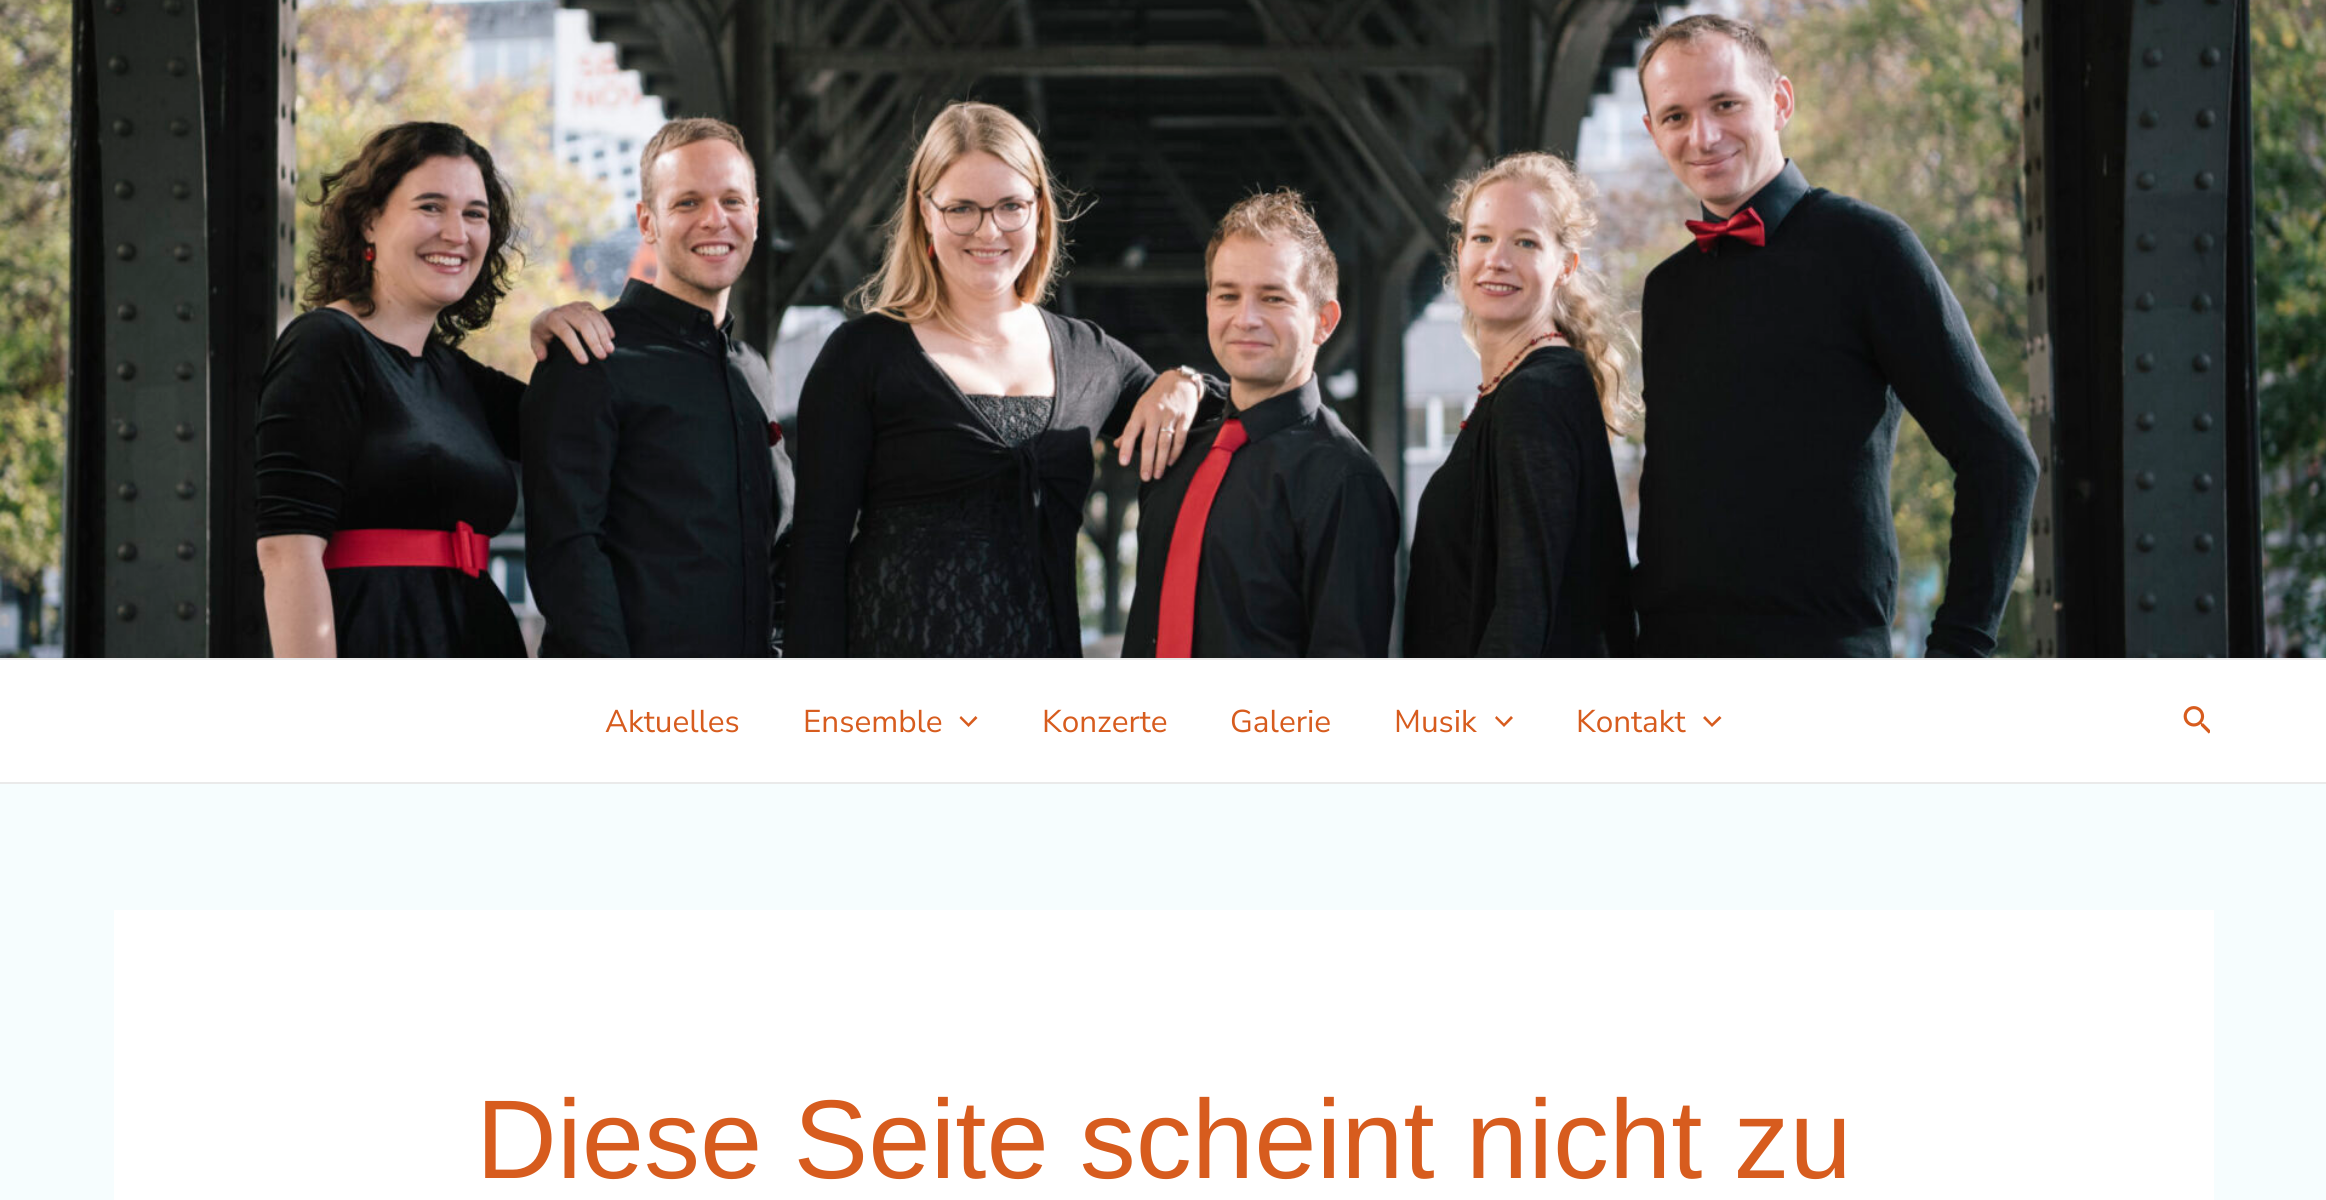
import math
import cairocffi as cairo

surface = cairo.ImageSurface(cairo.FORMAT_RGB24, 2326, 1200)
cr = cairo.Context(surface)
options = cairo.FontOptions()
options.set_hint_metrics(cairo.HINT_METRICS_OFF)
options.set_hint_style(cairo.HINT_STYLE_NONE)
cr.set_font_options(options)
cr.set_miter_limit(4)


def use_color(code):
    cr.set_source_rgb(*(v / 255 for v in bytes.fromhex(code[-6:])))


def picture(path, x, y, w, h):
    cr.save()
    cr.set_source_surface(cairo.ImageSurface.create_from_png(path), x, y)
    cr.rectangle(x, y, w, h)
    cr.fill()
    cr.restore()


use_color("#f6fdfe")
cr.paint()
picture("img1.png", 0, 0, 2326, 658)
use_color("#eaeaea")
cr.rectangle(0, 658, 2326, 2)
cr.fill()
use_color("#ffffff")
cr.rectangle(0, 660, 2326, 122)
cr.fill()
use_color("#eaeaea")
cr.rectangle(0, 782, 2326, 2)
cr.fill()
cr.select_font_face("Nunito Sans")
cr.set_font_size(31.5)
use_color("#d75c1e")
cr.move_to(605, 732)
cr.show_text("Aktuelles")
cr.move_to(803, 732)
cr.show_text("Ensemble")
cr.new_path()
cr.move_to(959.5, 718)
cr.line_to(968.5, 727)
cr.line_to(977.5, 718)
cr.line_to(975.5, 716)
cr.line_to(968.5, 723.5)
cr.line_to(961, 716)
cr.close_path()
cr.fill()
cr.move_to(1042, 732)
cr.show_text("Konzerte")
cr.move_to(1230, 732)
cr.show_text("Galerie")
cr.move_to(1394, 732)
cr.show_text("Musik")
cr.new_path()
cr.move_to(1495, 718)
cr.line_to(1504, 727)
cr.line_to(1513, 718)
cr.line_to(1511, 716)
cr.line_to(1504, 723.5)
cr.line_to(1496.5, 716)
cr.close_path()
cr.fill()
cr.move_to(1576, 732)
cr.show_text("Kontakt")
cr.new_path()
cr.move_to(1703, 718)
cr.line_to(1712, 727)
cr.line_to(1721.5, 718)
cr.line_to(1719.5, 716)
cr.line_to(1712, 723.5)
cr.line_to(1705, 716)
cr.close_path()
cr.fill()
picture("img2.png", 2183, 706, 27, 28)
use_color("#ffffff")
cr.rectangle(114, 910, 2100, 290)
cr.fill()
cr.select_font_face("Liberation Sans")
cr.set_font_size(112)
use_color("#d75c1e")
cr.move_to(476, 1178)
cr.show_text("Diese Seite scheint nicht zu")
surface.write_to_png("result.png")
